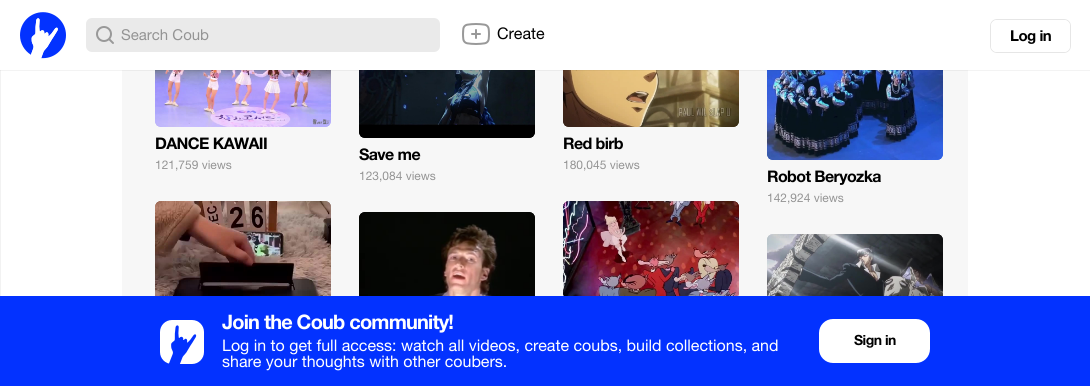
import math
import cairocffi as cairo

surface = cairo.ImageSurface(cairo.FORMAT_RGB24, 1090, 386)
cr = cairo.Context(surface)
options = cairo.FontOptions()
options.set_hint_metrics(cairo.HINT_METRICS_OFF)
options.set_hint_style(cairo.HINT_STYLE_NONE)
cr.set_font_options(options)
cr.set_miter_limit(4)


def use_color(code):
    cr.set_source_rgb(*(v / 255 for v in bytes.fromhex(code[-6:])))


def spaced_text(x, y, s, letter, word):
    cr.move_to(x, y)
    for ch in s:
        cr.show_text(ch)
        cr.rel_move_to(letter + word * (ch == ' '), 0)


def round_rect(x, y, w, h, r):
    cr.new_sub_path()
    for i, (u, v) in enumerate([(x + w - r, y + h - r), (x + r, y + h - r), (x + r, y + r), (x + w - r, y + r)]):
        cr.arc(u, v, r, i * math.pi / 2, (i + 1) * math.pi / 2)
    cr.close_path()


def picture(path, x, y, w, h):
    cr.save()
    cr.set_source_surface(cairo.ImageSurface.create_from_png(path), x, y)
    cr.rectangle(x, y, w, h)
    cr.fill()
    cr.restore()


use_color("#ffffff")
cr.paint()
cr.rectangle(-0.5, -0.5, 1, 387)
use_color("#f2f2f2")
cr.set_line_width(1)
cr.stroke()
use_color("#f7f7f7")
cr.rectangle(122, 70, 846, 226)
cr.fill()
picture("img5.png", 155, 121, 176, 6)
picture("img4.png", 155, 70, 176, 57)
picture("img7.png", 359, 132, 176, 6)
picture("img6.png", 359, 70, 176, 68)
picture("img9.png", 563, 121, 176, 6)
picture("img8.png", 563, 70, 176, 57)
picture("img11.png", 767, 154, 176, 6)
picture("img10.png", 767, 70, 176, 90)
cr.set_source_rgba(0, 0, 0, 0.05)
cr.rectangle(0, 70, 1090, 1)
cr.fill()
use_color("#ffffff")
cr.rectangle(0, 0, 1, 70)
cr.fill()
picture("img1.png", 20, 12, 46, 47)
use_color("#eaeaea")
round_rect(86, 18, 354, 34, 6)
cr.fill()
picture("img2.png", 96, 26, 18, 18)
cr.select_font_face("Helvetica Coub")
cr.set_font_size(15)
use_color("#949494")
cr.move_to(121, 40)
cr.show_text("Search Coub")
picture("img3.png", 462, 23, 28, 22)
cr.set_font_size(16)
use_color("#000000")
cr.move_to(497, 39)
cr.show_text("Create")
round_rect(990.5, 19.5, 80, 33, 6.5)
use_color("#e6e6e6")
cr.stroke()
use_color("#ffffff")
round_rect(991, 20, 79, 32, 6)
cr.fill()
cr.select_font_face("Helvetica Coub", cairo.FONT_SLANT_NORMAL, cairo.FONT_WEIGHT_BOLD)
cr.set_font_size(15)
use_color("#000000")
spaced_text(1010, 41, "Log in", -0.5, 0)
cr.set_font_size(16)
spaced_text(155, 149, "DANCE KAWAII", -0.6, 0)
cr.select_font_face("Helvetica Coub")
cr.set_font_size(12)
use_color("#949494")
cr.move_to(155, 169)
cr.show_text("121,759 views")
cr.select_font_face("Helvetica Coub", cairo.FONT_SLANT_NORMAL, cairo.FONT_WEIGHT_BOLD)
cr.set_font_size(16)
use_color("#000000")
spaced_text(359, 160, "Save me", -0.6, 0)
cr.select_font_face("Helvetica Coub")
cr.set_font_size(12)
use_color("#949494")
cr.move_to(359, 180)
cr.show_text("123,084 views")
cr.select_font_face("Helvetica Coub", cairo.FONT_SLANT_NORMAL, cairo.FONT_WEIGHT_BOLD)
cr.set_font_size(16)
use_color("#000000")
spaced_text(563, 149, "Red birb", -0.6, 0)
cr.select_font_face("Helvetica Coub")
cr.set_font_size(12)
use_color("#949494")
cr.move_to(563, 169)
cr.show_text("180,045 views")
cr.select_font_face("Helvetica Coub", cairo.FONT_SLANT_NORMAL, cairo.FONT_WEIGHT_BOLD)
cr.set_font_size(16)
use_color("#000000")
spaced_text(767, 182, "Robot Beryozka", -0.6, 0)
cr.select_font_face("Helvetica Coub")
cr.set_font_size(12)
use_color("#949494")
cr.move_to(767, 202)
cr.show_text("142,924 views")
picture("img12.png", 155, 201, 176, 6)
picture("img13.png", 155, 201, 176, 95)
picture("img14.png", 359, 212, 176, 6)
picture("img15.png", 359, 212, 176, 84)
picture("img16.png", 563, 201, 176, 95)
picture("img17.png", 563, 201, 176, 95)
picture("img18.png", 767, 234, 176, 6)
picture("img19.png", 767, 234, 176, 62)
use_color("#0332ff")
cr.rectangle(0, 296, 1090, 90)
cr.fill()
picture("img20.png", 160, 320, 44, 44)
cr.select_font_face("Helvetica Coub", cairo.FONT_SLANT_NORMAL, cairo.FONT_WEIGHT_BOLD)
cr.set_font_size(20)
use_color("#ffffff")
spaced_text(222, 329, "Join the Coub community!", -0.8, 0)
cr.select_font_face("Helvetica Coub")
cr.set_font_size(16)
cr.move_to(222, 351)
cr.show_text("Log in to get full access: watch all videos, create coubs, build collections, and")
cr.move_to(222, 367)
cr.show_text("share your thoughts with other coubers.")
round_rect(819, 319, 111, 44, 14)
cr.fill()
cr.select_font_face("Helvetica Coub", cairo.FONT_SLANT_NORMAL, cairo.FONT_WEIGHT_BOLD)
cr.set_font_size(14)
use_color("#000000")
spaced_text(854, 345, "Sign in", -0.5, 0)
surface.write_to_png("result.png")
